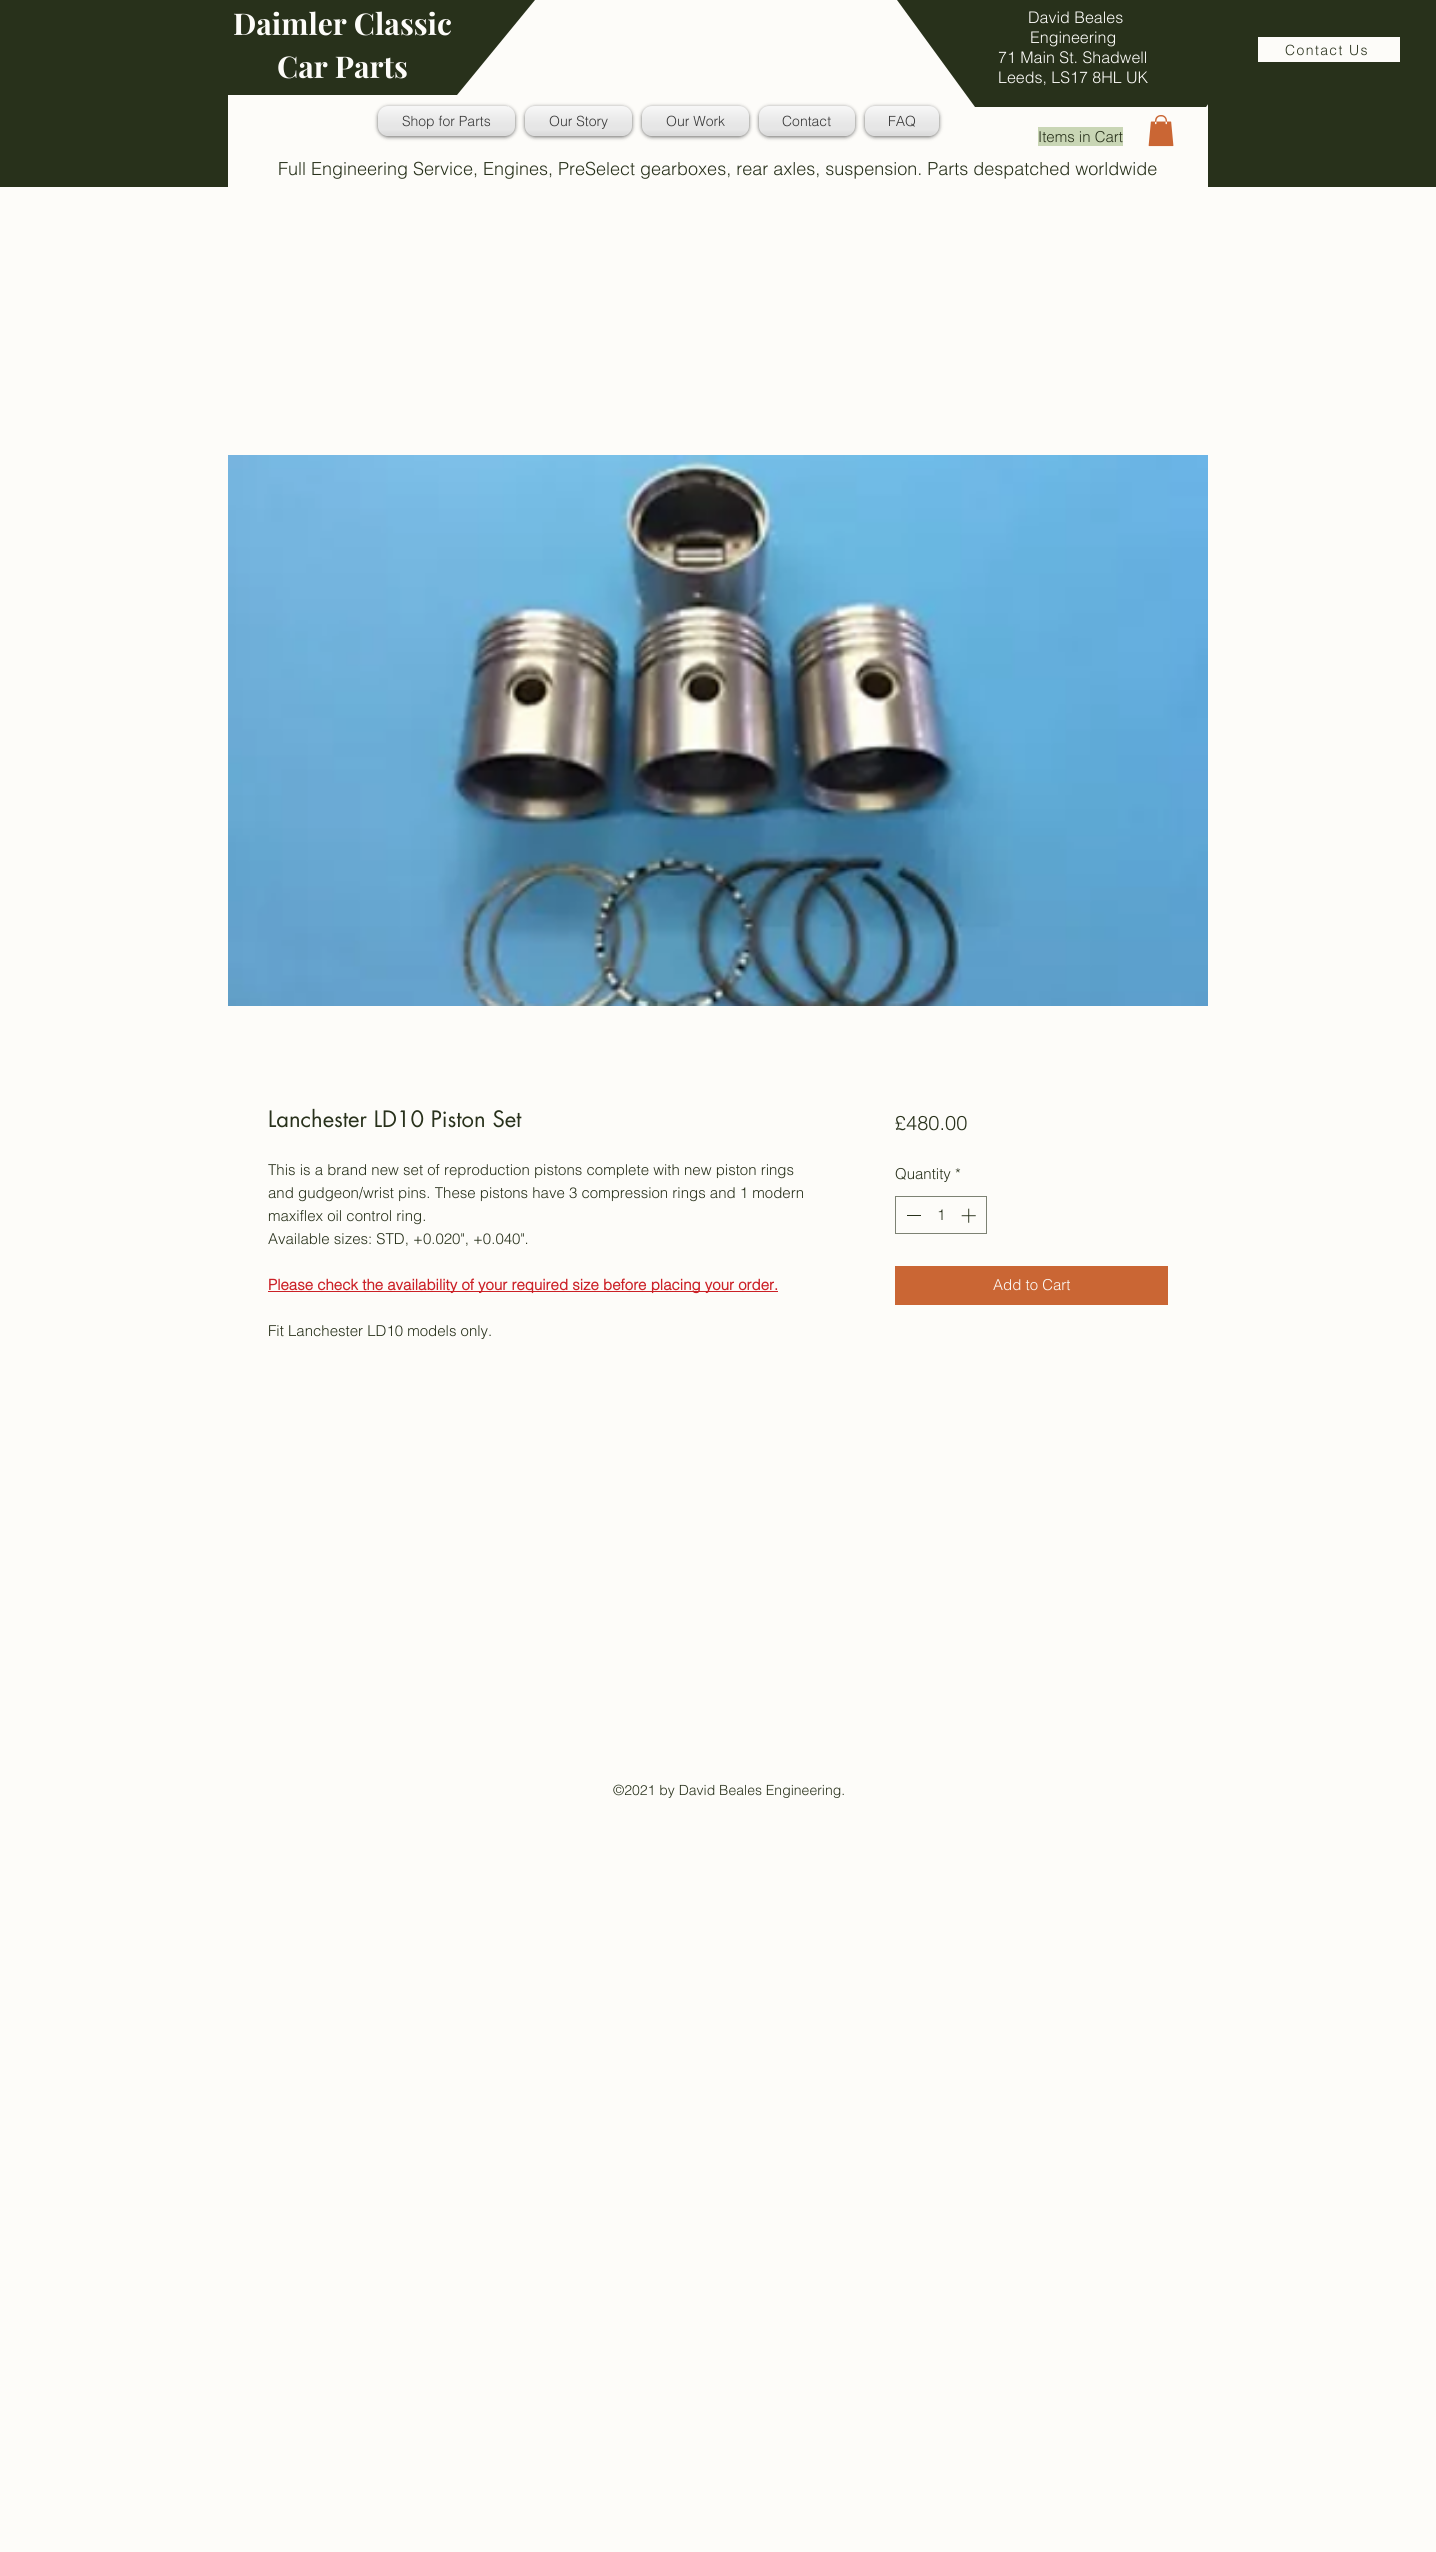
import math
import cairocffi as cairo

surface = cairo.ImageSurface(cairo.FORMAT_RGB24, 1436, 2552)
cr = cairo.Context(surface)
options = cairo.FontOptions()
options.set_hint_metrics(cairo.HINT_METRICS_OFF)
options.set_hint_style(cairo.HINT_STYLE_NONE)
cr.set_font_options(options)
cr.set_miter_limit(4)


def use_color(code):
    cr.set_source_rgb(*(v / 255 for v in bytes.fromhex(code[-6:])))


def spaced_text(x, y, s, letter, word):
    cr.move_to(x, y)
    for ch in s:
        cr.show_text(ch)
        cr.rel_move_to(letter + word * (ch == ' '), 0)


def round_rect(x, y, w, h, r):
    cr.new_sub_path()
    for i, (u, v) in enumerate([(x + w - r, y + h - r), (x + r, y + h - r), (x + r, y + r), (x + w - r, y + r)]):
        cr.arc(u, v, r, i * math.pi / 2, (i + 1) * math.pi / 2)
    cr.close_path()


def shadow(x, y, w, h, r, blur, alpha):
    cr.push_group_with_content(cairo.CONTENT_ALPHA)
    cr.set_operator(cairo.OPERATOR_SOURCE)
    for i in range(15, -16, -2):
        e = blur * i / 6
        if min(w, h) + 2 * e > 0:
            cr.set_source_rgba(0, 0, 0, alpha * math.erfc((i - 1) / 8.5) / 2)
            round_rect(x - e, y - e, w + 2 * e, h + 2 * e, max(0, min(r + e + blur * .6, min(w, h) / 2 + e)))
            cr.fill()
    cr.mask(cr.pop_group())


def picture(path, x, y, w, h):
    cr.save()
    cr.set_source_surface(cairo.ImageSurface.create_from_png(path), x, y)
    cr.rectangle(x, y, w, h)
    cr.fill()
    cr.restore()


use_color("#fdfcf9")
cr.paint()
use_color("#28311b")
cr.rectangle(0, 0, 1436, 187)
cr.fill()
use_color("#fdfcf9")
cr.rectangle(228, 0, 980, 187)
cr.fill()
use_color("#28311b")
cr.new_path()
cr.move_to(535, 0)
cr.line_to(148, 0)
cr.line_to(226, 95)
cr.line_to(457, 95)
cr.close_path()
cr.fill()
use_color("#fdfcf9")
cr.rectangle(1258, 37, 142, 25)
cr.fill()
use_color("#000000")
shadow(865, 107, 74, 30, 10, 2, 0.6)
use_color("#ffffff")
round_rect(865, 106, 74, 30, 10)
cr.fill()
picture("img4.png", 865, 106, 74, 30)
use_color("#28311b")
cr.new_path()
cr.move_to(1284, 0)
cr.line_to(897, 0)
cr.line_to(975, 107)
cr.line_to(1206, 107)
cr.close_path()
cr.fill()
cr.select_font_face("Playfair Display", cairo.FONT_SLANT_NORMAL, cairo.FONT_WEIGHT_BOLD)
cr.set_font_size(30)
use_color("#fdfcf9")
cr.move_to(233, 35)
cr.show_text("Daimler Classic")
cr.move_to(277, 78)
cr.show_text("Car Parts")
cr.select_font_face("helvetica Light")
cr.set_font_size(16)
cr.move_to(1028, 23)
cr.show_text("David Beales")
cr.move_to(1030, 43)
cr.show_text("Engineering")
cr.move_to(998, 63)
cr.show_text("71 Main St. Shadwell")
cr.move_to(998, 83)
cr.show_text("Leeds, LS17 8HL UK")
cr.set_font_size(14)
use_color("#28311b")
spaced_text(1285, 55, "Contact Us", 1.4, 0)
use_color("#000000")
shadow(378, 107, 137, 30, 10, 2, 0.6)
use_color("#ffffff")
round_rect(378, 106, 137, 30, 10)
cr.fill()
use_color("#f0f0ee")
cr.rectangle(508, 106, 1, 1)
cr.fill()
picture("img1.png", 378, 106, 137, 30)
use_color("#383838")
cr.move_to(402, 126)
cr.show_text("Shop for Parts")
use_color("#000000")
shadow(525, 107, 107, 30, 10, 2, 0.6)
use_color("#ffffff")
round_rect(525, 106, 107, 30, 10)
cr.fill()
picture("img2.png", 525, 106, 107, 30)
use_color("#383838")
cr.move_to(549, 126)
cr.show_text("Our Story")
use_color("#000000")
shadow(642, 107, 107, 30, 10, 2, 0.6)
use_color("#ffffff")
round_rect(642, 106, 107, 30, 10)
cr.fill()
picture("img2.png", 642, 106, 107, 30)
use_color("#383838")
cr.move_to(666, 126)
cr.show_text("Our Work")
use_color("#000000")
shadow(759, 107, 96, 30, 10, 2, 0.6)
use_color("#ffffff")
round_rect(759, 106, 96, 30, 10)
cr.fill()
picture("img3.png", 759, 106, 96, 30)
use_color("#383838")
cr.move_to(782, 126)
cr.show_text("Contact")
cr.move_to(888, 126)
cr.show_text("FAQ")
use_color("#c9d6b5")
cr.rectangle(1038, 127, 85, 19)
cr.fill()
cr.set_font_size(15)
use_color("#28311b")
cr.move_to(1038, 142)
cr.show_text("Items in Cart")
picture("img5.png", 1148, 115, 26, 32)
cr.set_font_size(18)
cr.move_to(278, 175)
cr.show_text("Full Engineering Service, Engines, PreSelect gearboxes, rear axles, suspension. Parts despatched worldwide")
picture("img6.png", 228, 455, 980, 551)
cr.select_font_face("futura")
cr.set_font_size(22)
cr.move_to(268, 1127)
cr.show_text("Lanchester LD10 Piston Set")
cr.select_font_face("helvetica Light")
cr.set_font_size(15)
cr.move_to(268, 1175)
cr.show_text("This is a brand new set of reproduction pistons complete with new piston rings")
cr.move_to(268, 1198)
cr.show_text("and gudgeon/wrist pins. These pistons have 3 compression rings and 1 modern")
cr.move_to(268, 1221)
cr.show_text("maxiflex oil control ring.")
cr.move_to(268, 1244)
cr.show_text("Available sizes: STD, +0.020\", +0.040\".")
use_color("#cb2026")
cr.rectangle(268, 1291, 510, 1)
cr.fill()
cr.select_font_face("helvetica", cairo.FONT_SLANT_NORMAL, cairo.FONT_WEIGHT_BOLD)
cr.move_to(268, 1290)
cr.show_text("Please check the availability of your required size before placing your order.")
cr.select_font_face("helvetica Light")
use_color("#28311b")
cr.move_to(268, 1336)
cr.show_text("Fit Lanchester LD10 models only.")
cr.set_font_size(20)
cr.move_to(895, 1130)
cr.show_text("£480.00")
cr.set_font_size(15)
cr.move_to(895, 1179)
cr.show_text("Quantity *")
cr.rectangle(895.5, 1196.5, 91, 37)
use_color("#7d8274")
cr.set_line_width(1)
cr.stroke()
use_color("#28311b")
cr.rectangle(907, 1215, 14, 1)
cr.fill()
cr.move_to(937, 1220)
cr.show_text("1")
picture("img7.png", 961, 1208, 15, 15)
use_color("#ca6634")
cr.rectangle(895, 1266, 273, 39)
cr.fill()
use_color("#fdfcf9")
cr.move_to(993, 1290)
cr.show_text("Add to Cart")
cr.set_font_size(14)
use_color("#28311b")
cr.move_to(613, 1795)
cr.show_text("©2021 by David Beales Engineering.")
surface.write_to_png("result.png")
